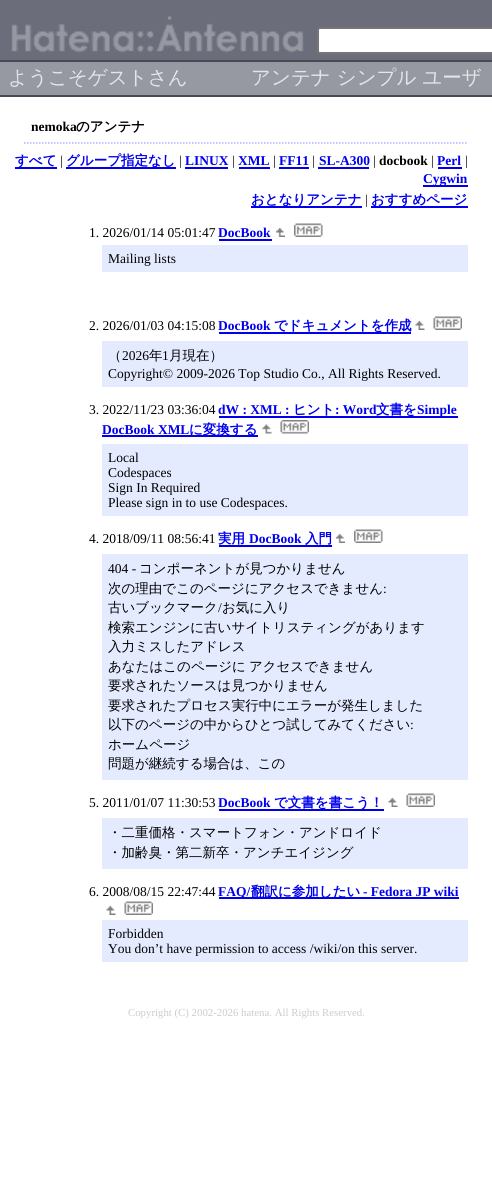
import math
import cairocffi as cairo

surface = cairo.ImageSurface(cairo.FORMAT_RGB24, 492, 1185)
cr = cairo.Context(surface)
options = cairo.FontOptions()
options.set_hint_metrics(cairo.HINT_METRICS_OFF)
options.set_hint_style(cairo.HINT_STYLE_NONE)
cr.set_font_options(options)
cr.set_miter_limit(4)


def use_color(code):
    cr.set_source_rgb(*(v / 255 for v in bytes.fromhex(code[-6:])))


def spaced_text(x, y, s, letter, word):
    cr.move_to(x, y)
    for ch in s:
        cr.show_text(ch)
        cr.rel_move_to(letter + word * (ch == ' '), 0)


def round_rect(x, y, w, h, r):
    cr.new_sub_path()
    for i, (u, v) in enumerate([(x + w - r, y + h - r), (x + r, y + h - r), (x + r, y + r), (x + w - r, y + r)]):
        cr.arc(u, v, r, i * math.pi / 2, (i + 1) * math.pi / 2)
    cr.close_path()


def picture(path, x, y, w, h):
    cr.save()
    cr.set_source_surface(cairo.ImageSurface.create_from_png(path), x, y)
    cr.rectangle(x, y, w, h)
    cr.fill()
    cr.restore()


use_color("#ffffff")
cr.paint()
use_color("#6b6e7a")
cr.rectangle(0, 0, 492, 60)
cr.fill()
picture("img1.png", 11, 24, 143, 29)
picture("img2.png", 156, 16, 148, 37)
use_color("#ffffff")
round_rect(318, 28, 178, 25, 2)
cr.fill_preserve()
use_color("#767676")
cr.stroke()
use_color("#474a54")
cr.rectangle(0, 60, 492, 2)
cr.fill()
use_color("#9699a2")
cr.rectangle(0, 62, 492, 33)
cr.fill()
cr.select_font_face("WenQuanYi Zen Hei Medium")
cr.set_font_size(19.5)
use_color("#e4e5e8")
cr.move_to(8, 84)
cr.show_text("ようこそゲストさん")
cr.move_to(251, 84)
cr.show_text("アンテナ シンプル ユーザ")
use_color("#474a54")
cr.rectangle(0, 95, 492, 2)
cr.fill()
cr.new_path()
cr.move_to(24, 143)
cr.line_to(468, 143)
use_color("#adb2ff")
cr.set_line_width(1.5)
cr.set_dash([1.5, 1.5])
cr.stroke()
cr.select_font_face("Liberation Serif", cairo.FONT_SLANT_NORMAL, cairo.FONT_WEIGHT_BOLD)
cr.set_font_size(13.5)
use_color("#000000")
cr.move_to(31, 131)
cr.show_text("nemoka")
cr.select_font_face("WenQuanYi Zen Hei", cairo.FONT_SLANT_NORMAL, cairo.FONT_WEIGHT_BOLD)
cr.move_to(76, 131)
cr.show_text("のアンテナ")
use_color("#0000ee")
cr.rectangle(15, 167, 42, 2)
cr.fill()
cr.move_to(15, 165)
cr.show_text("すべて")
cr.select_font_face("Liberation Serif")
use_color("#000000")
cr.move_to(60, 165)
cr.show_text("|")
use_color("#0000ee")
cr.rectangle(66, 167, 110, 2)
cr.fill()
cr.select_font_face("WenQuanYi Zen Hei", cairo.FONT_SLANT_NORMAL, cairo.FONT_WEIGHT_BOLD)
cr.move_to(66, 165)
cr.show_text("グループ指定なし")
cr.select_font_face("Liberation Serif")
use_color("#000000")
cr.move_to(179, 165)
cr.show_text("|")
cr.select_font_face("Liberation Serif", cairo.FONT_SLANT_NORMAL, cairo.FONT_WEIGHT_BOLD)
use_color("#0000ee")
cr.move_to(185, 165)
cr.show_text("LINUX")
cr.rectangle(185, 167, 43, 2)
cr.fill()
cr.select_font_face("Liberation Serif")
use_color("#000000")
cr.move_to(232, 165)
cr.show_text("|")
cr.select_font_face("Liberation Serif", cairo.FONT_SLANT_NORMAL, cairo.FONT_WEIGHT_BOLD)
use_color("#0000ee")
cr.move_to(238, 165)
cr.show_text("XML")
cr.rectangle(239, 167, 31, 2)
cr.fill()
cr.select_font_face("Liberation Serif")
use_color("#000000")
cr.move_to(273, 165)
cr.show_text("|")
cr.select_font_face("Liberation Serif", cairo.FONT_SLANT_NORMAL, cairo.FONT_WEIGHT_BOLD)
use_color("#0000ee")
cr.move_to(279, 165)
cr.show_text("FF11")
cr.rectangle(279, 167, 30, 2)
cr.fill()
cr.select_font_face("Liberation Serif")
use_color("#000000")
cr.move_to(312, 165)
cr.show_text("|")
cr.select_font_face("Liberation Serif", cairo.FONT_SLANT_NORMAL, cairo.FONT_WEIGHT_BOLD)
use_color("#0000ee")
cr.move_to(319, 165)
cr.show_text("SL-A300")
cr.rectangle(318, 167, 51, 2)
cr.fill()
cr.select_font_face("Liberation Serif")
use_color("#000000")
cr.move_to(373, 165)
cr.show_text("|")
cr.select_font_face("Liberation Serif", cairo.FONT_SLANT_NORMAL, cairo.FONT_WEIGHT_BOLD)
cr.move_to(379, 165)
cr.show_text("docbook")
cr.select_font_face("Liberation Serif")
cr.move_to(431, 165)
cr.show_text("|")
cr.select_font_face("Liberation Serif", cairo.FONT_SLANT_NORMAL, cairo.FONT_WEIGHT_BOLD)
use_color("#0000ee")
cr.move_to(437, 165)
cr.show_text("Perl")
cr.rectangle(438, 167, 24, 2)
cr.fill()
cr.select_font_face("Liberation Serif")
use_color("#000000")
cr.move_to(465, 165)
cr.show_text("|")
use_color("#0000ee")
cr.rectangle(423, 185, 45, 2)
cr.fill()
cr.select_font_face("Liberation Serif", cairo.FONT_SLANT_NORMAL, cairo.FONT_WEIGHT_BOLD)
cr.move_to(423, 183)
cr.show_text("Cygwin")
cr.rectangle(251, 206, 111, 2)
cr.fill()
cr.select_font_face("WenQuanYi Zen Hei", cairo.FONT_SLANT_NORMAL, cairo.FONT_WEIGHT_BOLD)
cr.move_to(251, 204)
cr.show_text("おとなりアンテナ")
cr.select_font_face("Liberation Serif")
use_color("#000000")
cr.move_to(365, 204)
cr.show_text("|")
use_color("#0000ee")
cr.rectangle(371, 206, 97, 2)
cr.fill()
cr.select_font_face("WenQuanYi Zen Hei", cairo.FONT_SLANT_NORMAL, cairo.FONT_WEIGHT_BOLD)
cr.move_to(371, 204)
cr.show_text("おすすめページ")
cr.select_font_face("Liberation Serif")
use_color("#000000")
cr.move_to(89, 237)
cr.show_text("1. 2026/01/14 05:01:47")
cr.select_font_face("Liberation Serif", cairo.FONT_SLANT_NORMAL, cairo.FONT_WEIGHT_BOLD)
use_color("#0000ee")
cr.move_to(218, 237)
cr.show_text("DocBook")
cr.rectangle(219, 239, 53, 2)
cr.fill()
picture("img3.png", 276, 228, 9, 9)
picture("img4.png", 294, 223, 29, 14)
use_color("#e5ebff")
cr.rectangle(102, 245, 366, 27)
cr.fill()
cr.select_font_face("Liberation Serif")
use_color("#000000")
cr.move_to(108, 263)
cr.show_text("Mailing lists")
cr.move_to(89, 330)
cr.show_text("2. 2026/01/03 04:15:08")
cr.select_font_face("Liberation Serif", cairo.FONT_SLANT_NORMAL, cairo.FONT_WEIGHT_BOLD)
use_color("#0000ee")
cr.move_to(218, 330)
cr.show_text("DocBook")
cr.rectangle(219, 332, 192, 2)
cr.fill()
cr.select_font_face("WenQuanYi Zen Hei", cairo.FONT_SLANT_NORMAL, cairo.FONT_WEIGHT_BOLD)
cr.move_to(274, 330)
cr.show_text("でドキュメントを作成")
picture("img5.png", 415, 321, 10, 9)
picture("img6.png", 433, 316, 29, 14)
use_color("#e5ebff")
cr.rectangle(102, 341, 366, 46)
cr.fill()
cr.select_font_face("WenQuanYi Zen Hei Medium")
use_color("#000000")
cr.move_to(108, 360)
cr.show_text("（")
cr.select_font_face("Liberation Serif")
cr.move_to(122, 360)
cr.show_text("2026")
cr.select_font_face("WenQuanYi Zen Hei Medium")
cr.move_to(149, 360)
cr.show_text("年")
cr.select_font_face("Liberation Serif")
cr.move_to(162, 360)
cr.show_text("1")
cr.select_font_face("WenQuanYi Zen Hei Medium")
cr.move_to(169, 360)
cr.show_text("月現在）")
cr.select_font_face("Liberation Serif")
cr.move_to(108, 378)
cr.show_text("Copyright© 2009-2026 Top Studio Co., All Rights Reserved.")
cr.move_to(89, 414)
cr.show_text("3. 2022/11/23 03:36:04")
cr.select_font_face("Liberation Serif", cairo.FONT_SLANT_NORMAL, cairo.FONT_WEIGHT_BOLD)
use_color("#0000ee")
cr.move_to(218, 414)
cr.show_text("dW : XML :")
cr.select_font_face("WenQuanYi Zen Hei", cairo.FONT_SLANT_NORMAL, cairo.FONT_WEIGHT_BOLD)
cr.move_to(293, 414)
cr.show_text("ヒント")
cr.select_font_face("Liberation Serif", cairo.FONT_SLANT_NORMAL, cairo.FONT_WEIGHT_BOLD)
cr.move_to(335, 414)
cr.show_text(": Word")
cr.rectangle(219, 416, 239, 2)
cr.fill()
cr.select_font_face("WenQuanYi Zen Hei", cairo.FONT_SLANT_NORMAL, cairo.FONT_WEIGHT_BOLD)
cr.move_to(376, 414)
cr.show_text("文書を")
cr.select_font_face("Liberation Serif", cairo.FONT_SLANT_NORMAL, cairo.FONT_WEIGHT_BOLD)
cr.move_to(417, 414)
cr.show_text("Simple")
cr.move_to(102, 434)
cr.show_text("DocBook XML")
cr.rectangle(102, 435, 156, 2)
cr.fill()
cr.select_font_face("WenQuanYi Zen Hei", cairo.FONT_SLANT_NORMAL, cairo.FONT_WEIGHT_BOLD)
cr.move_to(189, 434)
cr.show_text("に変換する")
picture("img7.png", 262, 424, 10, 10)
picture("img8.png", 280, 420, 29, 14)
use_color("#e5ebff")
cr.rectangle(102, 444, 366, 72)
cr.fill()
cr.select_font_face("Liberation Serif")
use_color("#000000")
cr.move_to(108, 462)
cr.show_text("Local")
cr.move_to(108, 477)
cr.show_text("Codespaces")
cr.move_to(108, 492)
cr.show_text("Sign In Required")
cr.move_to(108, 507)
cr.show_text("Please sign in to use Codespaces.")
cr.move_to(89, 543)
cr.show_text("4. 2018/09/11 08:56:41")
cr.select_font_face("WenQuanYi Zen Hei", cairo.FONT_SLANT_NORMAL, cairo.FONT_WEIGHT_BOLD)
use_color("#0000ee")
cr.move_to(218, 543)
cr.show_text("実用")
cr.select_font_face("Liberation Serif", cairo.FONT_SLANT_NORMAL, cairo.FONT_WEIGHT_BOLD)
cr.move_to(249, 543)
cr.show_text("DocBook")
cr.rectangle(219, 545, 113, 2)
cr.fill()
cr.select_font_face("WenQuanYi Zen Hei", cairo.FONT_SLANT_NORMAL, cairo.FONT_WEIGHT_BOLD)
cr.move_to(305, 543)
cr.show_text("入門")
picture("img3.png", 336, 534, 9, 9)
picture("img4.png", 354, 529, 29, 14)
use_color("#e5ebff")
cr.rectangle(102, 554, 366, 226)
cr.fill()
cr.select_font_face("Liberation Serif")
use_color("#000000")
cr.move_to(108, 573)
cr.show_text("404 -")
cr.select_font_face("WenQuanYi Zen Hei Medium")
cr.move_to(139, 573)
cr.show_text("コンポーネントが見つかりません")
cr.move_to(108, 593)
cr.show_text("次の理由でこのページにアクセスできません")
cr.select_font_face("Liberation Serif")
cr.move_to(383, 593)
cr.show_text(":")
cr.select_font_face("WenQuanYi Zen Hei Medium")
cr.move_to(108, 612)
cr.show_text("古いブックマーク お気に入り")
cr.select_font_face("Liberation Serif")
cr.move_to(218, 612)
cr.show_text("/")
cr.select_font_face("WenQuanYi Zen Hei Medium")
cr.move_to(108, 632)
cr.show_text("検索エンジンに古いサイトリスティングがあります")
cr.move_to(108, 651)
cr.show_text("入力ミスしたアドレス")
spaced_text(108, 671, "あなたはこのページに アクセスできません", 0, -1)
cr.move_to(108, 690)
cr.show_text("要求されたソースは見つかりません")
cr.move_to(108, 710)
cr.show_text("要求されたプロセス実行中にエラーが発生しました")
cr.move_to(108, 729)
cr.show_text("以下のページの中からひとつ試してみてください")
cr.select_font_face("Liberation Serif")
cr.move_to(410, 729)
cr.show_text(":")
cr.select_font_face("WenQuanYi Zen Hei Medium")
cr.move_to(108, 749)
cr.show_text("ホームページ")
cr.move_to(108, 768)
cr.show_text("問題が継続する場合は、この")
cr.select_font_face("Liberation Serif")
cr.move_to(89, 807)
cr.show_text("5. 2011/01/07 11:30:53")
cr.select_font_face("Liberation Serif", cairo.FONT_SLANT_NORMAL, cairo.FONT_WEIGHT_BOLD)
use_color("#0000ee")
cr.move_to(218, 807)
cr.show_text("DocBook")
cr.rectangle(219, 809, 165, 2)
cr.fill()
cr.select_font_face("WenQuanYi Zen Hei", cairo.FONT_SLANT_NORMAL, cairo.FONT_WEIGHT_BOLD)
cr.move_to(274, 807)
cr.show_text("で文書を書こう！")
picture("img5.png", 388, 798, 10, 9)
picture("img6.png", 406, 793, 29, 14)
use_color("#e5ebff")
cr.rectangle(102, 818, 366, 51)
cr.fill()
cr.select_font_face("WenQuanYi Zen Hei Medium")
use_color("#000000")
cr.move_to(108, 837)
cr.show_text("・二重価格・スマートフォン・アンドロイド")
cr.move_to(108, 857)
cr.show_text("・加齢臭・第二新卒・アンチエイジング")
cr.select_font_face("Liberation Serif")
cr.move_to(89, 896)
cr.show_text("6. 2008/08/15 22:47:44")
use_color("#0000ee")
cr.rectangle(219, 897, 240, 2)
cr.fill()
cr.select_font_face("Liberation Serif", cairo.FONT_SLANT_NORMAL, cairo.FONT_WEIGHT_BOLD)
cr.move_to(218, 896)
cr.show_text("FAQ/")
cr.select_font_face("WenQuanYi Zen Hei", cairo.FONT_SLANT_NORMAL, cairo.FONT_WEIGHT_BOLD)
cr.move_to(251, 896)
cr.show_text("翻訳に参加したい")
cr.select_font_face("Liberation Serif", cairo.FONT_SLANT_NORMAL, cairo.FONT_WEIGHT_BOLD)
cr.move_to(363, 896)
cr.show_text("- Fedora JP wiki")
picture("img9.png", 106, 906, 10, 9)
picture("img10.png", 124, 901, 29, 14)
use_color("#e5ebff")
cr.rectangle(102, 920, 366, 42)
cr.fill()
cr.select_font_face("Liberation Serif")
use_color("#000000")
cr.move_to(108, 938)
cr.show_text("Forbidden")
cr.move_to(108, 953)
cr.show_text("You don’t have permission to access /wiki/on this server.")
cr.set_font_size(10.8)
use_color("#cccccc")
cr.move_to(128, 1016)
cr.show_text("Copyright (C) 2002-2026 hatena. All Rights Reserved.")
surface.write_to_png("result.png")
